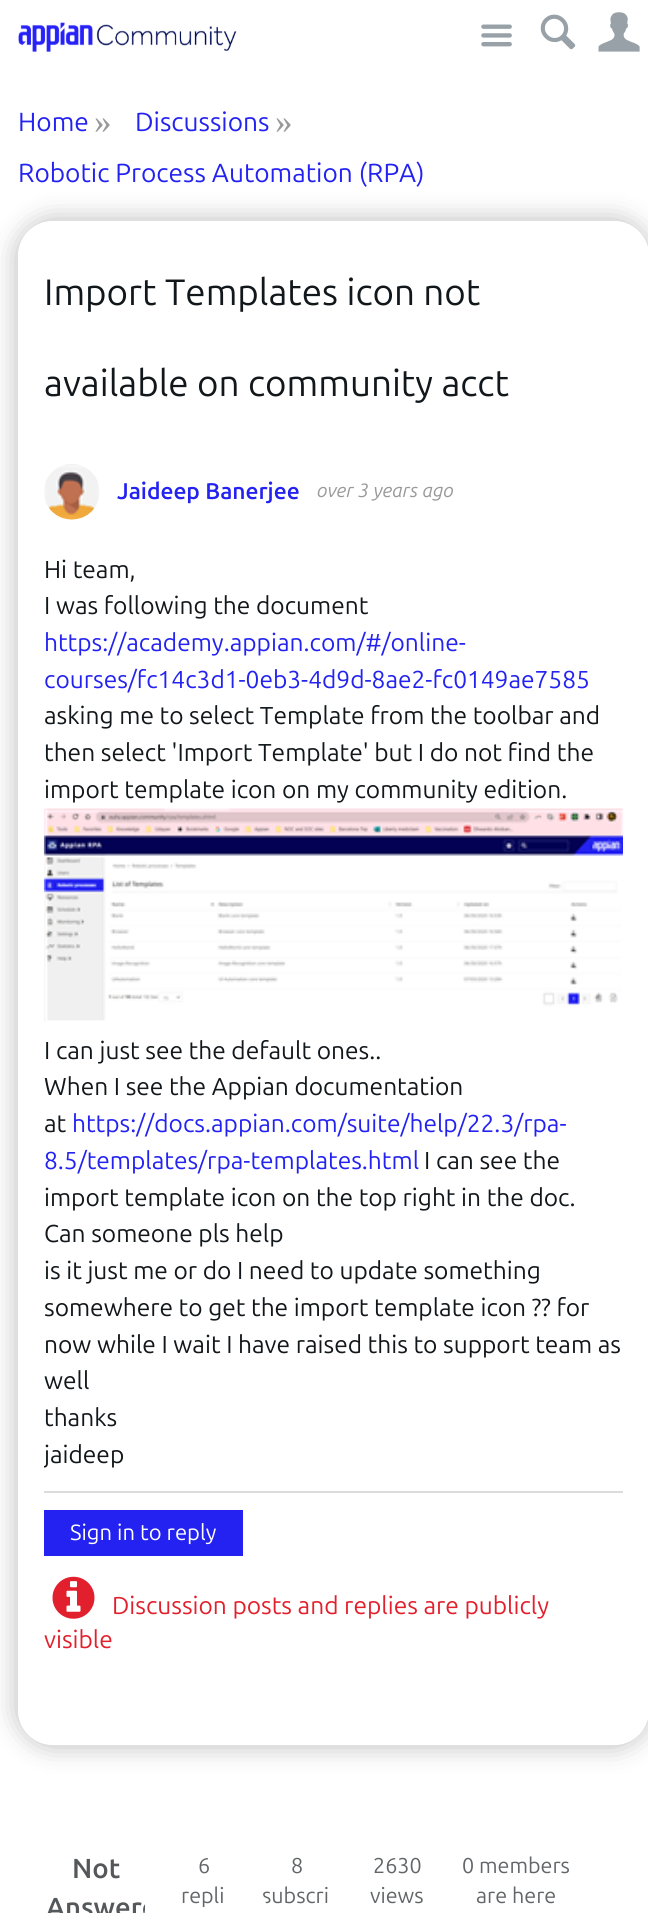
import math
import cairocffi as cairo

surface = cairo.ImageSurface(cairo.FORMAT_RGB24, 648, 1913)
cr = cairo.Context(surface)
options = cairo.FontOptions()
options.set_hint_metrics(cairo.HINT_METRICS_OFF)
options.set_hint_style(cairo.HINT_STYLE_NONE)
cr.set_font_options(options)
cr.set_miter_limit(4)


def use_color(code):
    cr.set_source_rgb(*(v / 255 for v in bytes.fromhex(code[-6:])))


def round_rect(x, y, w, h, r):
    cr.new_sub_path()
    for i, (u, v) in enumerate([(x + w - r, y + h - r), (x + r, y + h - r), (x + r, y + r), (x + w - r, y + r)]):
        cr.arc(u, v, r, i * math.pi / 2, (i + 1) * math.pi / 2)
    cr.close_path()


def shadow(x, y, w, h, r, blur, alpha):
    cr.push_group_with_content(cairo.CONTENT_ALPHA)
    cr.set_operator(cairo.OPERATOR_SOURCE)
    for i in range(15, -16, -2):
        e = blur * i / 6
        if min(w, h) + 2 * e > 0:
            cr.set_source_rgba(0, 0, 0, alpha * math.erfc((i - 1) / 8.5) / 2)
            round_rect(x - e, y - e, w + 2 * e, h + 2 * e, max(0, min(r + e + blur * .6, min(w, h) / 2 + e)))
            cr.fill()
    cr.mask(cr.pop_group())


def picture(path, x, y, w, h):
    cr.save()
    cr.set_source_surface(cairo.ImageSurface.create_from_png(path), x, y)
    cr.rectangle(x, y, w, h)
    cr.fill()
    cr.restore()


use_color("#ffffff")
cr.paint()
picture("img1.png", 18, 22, 219, 30)
picture("img2.png", 481, 24, 31, 23)
picture("img3.png", 540, 14, 36, 36)
picture("img4.png", 598, 12, 42, 40)
cr.select_font_face("Ubuntu Sans")
cr.set_font_size(26.25)
use_color("#2322f0")
cr.move_to(18, 131)
cr.show_text("Home")
cr.select_font_face("Liberation Serif")
cr.set_font_size(35)
use_color("#999999")
cr.move_to(94, 133)
cr.show_text("»")
cr.select_font_face("Ubuntu Sans")
cr.set_font_size(26.25)
use_color("#2322f0")
cr.move_to(135, 131)
cr.show_text("Discussions")
cr.select_font_face("Liberation Serif")
cr.set_font_size(35)
use_color("#999999")
cr.move_to(275, 133)
cr.show_text("»")
cr.save()
cr.set_fill_rule(cairo.FILL_RULE_EVEN_ODD)
cr.new_path()
cr.move_to(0, 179)
cr.line_to(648, 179)
cr.line_to(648, 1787)
cr.line_to(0, 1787)
cr.close_path()
cr.move_to(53, 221)
cr.line_to(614, 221)
cr.curve_to(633.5, 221, 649, 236.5, 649, 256)
cr.line_to(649, 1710)
cr.curve_to(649, 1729.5, 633.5, 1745, 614, 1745)
cr.line_to(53, 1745)
cr.curve_to(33.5, 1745, 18, 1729.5, 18, 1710)
cr.line_to(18, 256)
cr.curve_to(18, 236.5, 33.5, 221, 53, 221)
cr.close_path()
cr.clip()
use_color("#000000")
shadow(16, 219, 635, 1528, 37, 13, 0.25)
cr.restore()
cr.select_font_face("Ubuntu Sans")
cr.set_font_size(26.25)
use_color("#2322f0")
cr.move_to(18, 182)
cr.show_text("Robotic Process Automation (RPA)")
cr.set_font_size(36.75)
use_color("#11171a")
cr.move_to(44, 305)
cr.show_text("Import Templates icon not")
cr.move_to(44, 396)
cr.show_text("available on community acct")
picture("img5.png", 44, 464, 56, 56)
cr.select_font_face("Ubuntu Sans SemiBold")
cr.set_font_size(22.75)
use_color("#2322f0")
cr.move_to(117, 499)
cr.show_text("Jaideep Banerjee")
cr.select_font_face("Ubuntu Sans", cairo.FONT_SLANT_ITALIC)
cr.set_font_size(19.25)
use_color("#999999")
cr.move_to(317, 497)
cr.show_text("over 3 years ago")
use_color("#dbdcdd")
cr.rectangle(44, 1491, 579, 2)
cr.fill()
cr.select_font_face("Ubuntu Sans")
cr.set_font_size(24.5)
use_color("#11171a")
cr.move_to(44, 578)
cr.show_text("Hi team,")
cr.move_to(44, 614)
cr.show_text("I was following the document")
use_color("#2322f0")
cr.move_to(44, 651)
cr.show_text("https://academy.appian.com/#/online-")
cr.move_to(44, 688)
cr.show_text("courses/fc14c3d1-0eb3-4d9d-8ae2-fc0149ae7585")
use_color("#11171a")
cr.move_to(44, 724)
cr.show_text("asking me to select Template from the toolbar and")
cr.move_to(44, 761)
cr.show_text("then select 'Import Template' but I do not find the")
cr.move_to(44, 798)
cr.show_text("import template icon on my community edition.")
picture("img6.png", 43, 808, 580, 214)
cr.move_to(44, 1059)
cr.show_text("I can just see the default ones..")
cr.move_to(44, 1095)
cr.show_text("When I see the Appian documentation")
cr.move_to(44, 1132)
cr.show_text("at")
use_color("#2322f0")
cr.move_to(72, 1132)
cr.show_text("https://docs.appian.com/suite/help/22.3/rpa-")
cr.move_to(44, 1169)
cr.show_text("8.5/templates/rpa-templates.html")
use_color("#11171a")
cr.move_to(424, 1169)
cr.show_text("I can see the")
cr.move_to(44, 1206)
cr.show_text("import template icon on the top right in the doc.")
cr.move_to(44, 1242)
cr.show_text("Can someone pls help")
cr.move_to(44, 1279)
cr.show_text("is it just me or do I need to update something")
cr.move_to(44, 1316)
cr.show_text("somewhere to get the import template icon ?? for")
cr.move_to(44, 1353)
cr.show_text("now while I wait I have raised this to support team as")
cr.move_to(44, 1389)
cr.show_text("well")
cr.move_to(44, 1426)
cr.show_text("thanks")
cr.save()
cr.rectangle(44, 555, 579, 936)
cr.clip()
cr.move_to(44, 1463)
cr.show_text("jaideep")
cr.restore()
use_color("#2322f0")
cr.rectangle(44, 1510, 199, 46)
cr.fill()
cr.set_font_size(22)
use_color("#ffffff")
cr.move_to(70, 1540)
cr.show_text("Sign in to reply")
picture("img7.png", 52, 1576, 43, 43)
cr.set_font_size(24.5)
use_color("#e2202d")
cr.move_to(112, 1614)
cr.show_text("Discussion posts and replies are publicly")
cr.move_to(44, 1648)
cr.show_text("visible")
cr.select_font_face("Ubuntu Sans SemiBold")
cr.set_font_size(27.5)
use_color("#54585a")
cr.move_to(72, 1878)
cr.show_text("Not")
cr.save()
round_rect(44, 1850, 101, 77, 18)
cr.clip()
cr.move_to(46, 1917)
cr.show_text("Answere")
cr.restore()
cr.select_font_face("Ubuntu Sans")
cr.set_font_size(21.5)
use_color("#626668")
cr.move_to(198, 1873)
cr.show_text("6")
cr.move_to(181, 1903)
cr.show_text("repli")
cr.move_to(291, 1873)
cr.show_text("8")
cr.save()
round_rect(263, 1850, 70, 61, 18)
cr.clip()
cr.move_to(262, 1903)
cr.show_text("subscri")
cr.restore()
cr.move_to(373, 1873)
cr.show_text("2630")
cr.move_to(370, 1903)
cr.show_text("views")
cr.move_to(462, 1873)
cr.show_text("0 members")
cr.move_to(476, 1903)
cr.show_text("are here")
surface.write_to_png("result.png")
